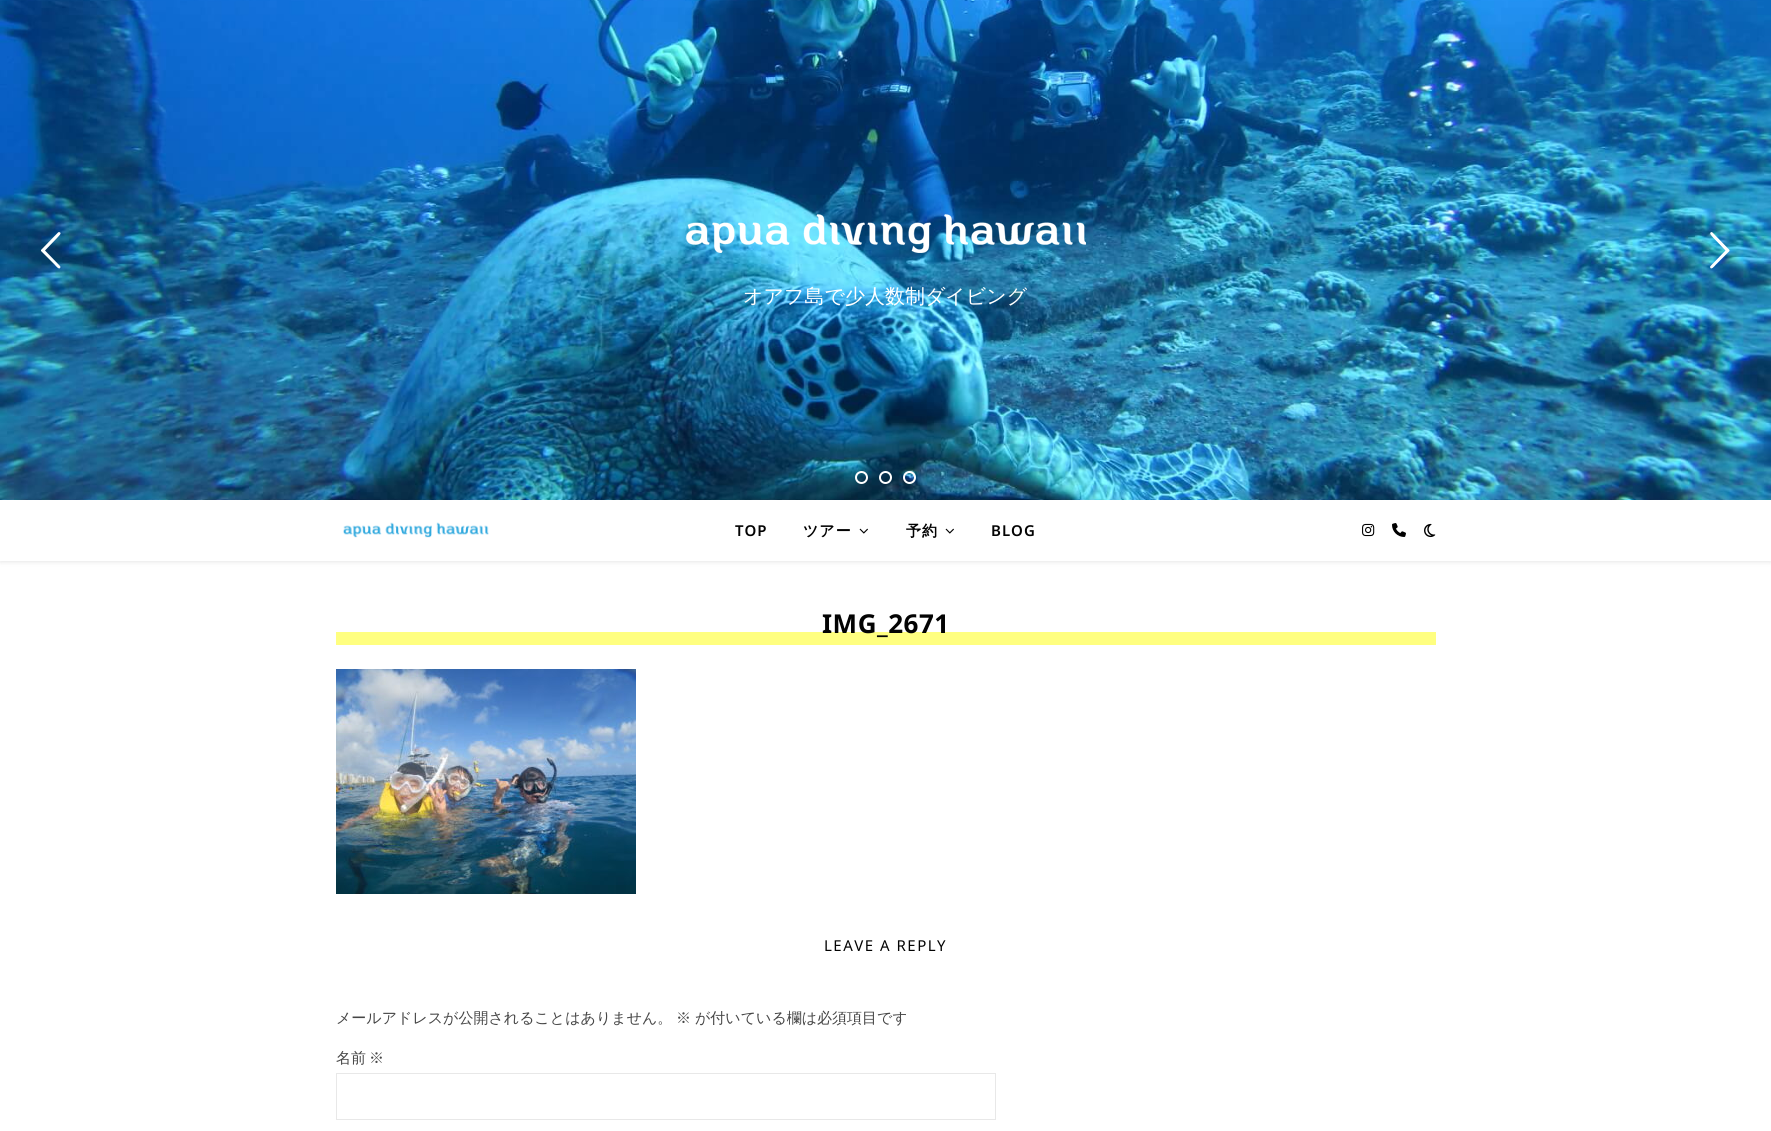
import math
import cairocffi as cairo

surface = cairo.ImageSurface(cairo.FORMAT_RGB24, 1771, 1131)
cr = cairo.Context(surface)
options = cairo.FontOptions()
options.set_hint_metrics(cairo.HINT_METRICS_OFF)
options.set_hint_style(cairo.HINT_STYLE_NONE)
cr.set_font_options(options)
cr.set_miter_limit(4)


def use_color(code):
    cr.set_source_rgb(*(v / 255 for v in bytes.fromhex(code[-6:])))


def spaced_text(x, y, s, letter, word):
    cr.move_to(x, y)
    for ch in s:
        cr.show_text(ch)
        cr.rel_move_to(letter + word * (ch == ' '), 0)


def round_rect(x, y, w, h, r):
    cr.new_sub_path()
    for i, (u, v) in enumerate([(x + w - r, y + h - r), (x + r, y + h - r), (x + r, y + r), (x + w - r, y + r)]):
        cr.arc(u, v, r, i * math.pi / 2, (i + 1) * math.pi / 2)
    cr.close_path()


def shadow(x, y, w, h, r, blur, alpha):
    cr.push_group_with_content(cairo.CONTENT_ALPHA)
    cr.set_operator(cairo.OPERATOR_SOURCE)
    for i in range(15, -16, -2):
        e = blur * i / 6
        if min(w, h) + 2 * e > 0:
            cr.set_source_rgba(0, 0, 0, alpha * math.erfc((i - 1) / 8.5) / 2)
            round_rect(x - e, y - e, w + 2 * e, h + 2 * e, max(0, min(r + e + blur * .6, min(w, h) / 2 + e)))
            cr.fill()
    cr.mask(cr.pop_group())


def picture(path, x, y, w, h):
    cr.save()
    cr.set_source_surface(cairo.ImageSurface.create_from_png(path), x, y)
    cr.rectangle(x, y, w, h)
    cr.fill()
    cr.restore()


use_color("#ffffff")
cr.paint()
picture("img1.png", 0, 0, 1771, 500)
use_color("#ffffff")
cr.new_path()
cr.move_to(60, 266)
cr.line_to(60.5, 267)
cr.curve_to(59.5, 271, 55.5, 265.5, 55, 265)
cr.line_to(41, 251)
cr.line_to(41, 250)
cr.line_to(58, 232.5)
cr.line_to(59, 232)
cr.curve_to(63, 233, 58, 236.5, 57.5, 237.5)
cr.line_to(45, 250.5)
cr.close_path()
cr.fill()
cr.new_path()
cr.move_to(1710.5, 266)
cr.line_to(1725.5, 250.5)
cr.line_to(1713, 237.5)
cr.curve_to(1712.5, 236.5, 1708, 233, 1711.5, 232)
cr.line_to(1712.5, 232.5)
cr.line_to(1729.5, 250)
cr.line_to(1729.5, 251)
cr.line_to(1715.5, 265)
cr.curve_to(1715, 265.5, 1711, 271, 1710, 267)
cr.close_path()
cr.fill()
cr.arc(861.5, 477.5, 5.5, 0, 2 * math.pi)
cr.stroke()
cr.arc(885.5, 477.5, 5.5, 0, 2 * math.pi)
cr.stroke()
cr.arc(909.5, 477.5, 5.5, 0, 2 * math.pi)
cr.stroke()
picture("img2.png", 686, 214, 400, 39)
cr.select_font_face("WenQuanYi Zen Hei Medium")
cr.set_font_size(20)
cr.move_to(743, 303)
cr.show_text("オアフ島で少人数制ダイビング")
cr.save()
cr.set_fill_rule(cairo.FILL_RULE_EVEN_ODD)
cr.new_path()
cr.move_to(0, 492)
cr.line_to(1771, 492)
cr.line_to(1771, 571)
cr.line_to(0, 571)
cr.close_path()
cr.move_to(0, 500)
cr.line_to(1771, 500)
cr.line_to(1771, 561)
cr.line_to(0, 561)
cr.close_path()
cr.clip()
use_color("#000000")
shadow(0, 501, 1771, 61, 0, 2.5, 0.1)
cr.restore()
picture("img3.png", 343, 522, 146, 16)
cr.select_font_face("Noto Sans SemiBold")
cr.set_font_size(15)
use_color("#030303")
spaced_text(735, 536, "TOP", 1, 0)
cr.select_font_face("WenQuanYi Zen Hei", cairo.FONT_SLANT_NORMAL, cairo.FONT_WEIGHT_BOLD)
spaced_text(803, 536, "ツアー", 1, 0)
picture("img4.png", 859, 528, 9, 6)
spaced_text(906, 536, "予約", 1, 0)
picture("img4.png", 945, 528, 9, 6)
cr.select_font_face("Noto Sans SemiBold")
spaced_text(991, 536, "BLOG", 1, 0)
picture("img5.png", 1362, 523, 13, 14)
picture("img6.png", 1392, 523, 14, 14)
picture("img7.png", 1424, 523, 12, 15)
use_color("#ffff80")
cr.rectangle(336, 632, 1100, 13)
cr.fill()
cr.select_font_face("Noto Sans", cairo.FONT_SLANT_NORMAL, cairo.FONT_WEIGHT_BOLD)
cr.set_font_size(26)
use_color("#030303")
spaced_text(822, 633, "IMG_2671", 0.5, 0)
picture("img8.png", 336, 669, 300, 225)
cr.select_font_face("Noto Sans")
cr.set_font_size(15)
spaced_text(824, 951, "LEAVE A REPLY", 1.5, 0)
cr.select_font_face("WenQuanYi Zen Hei Medium")
use_color("#464646")
cr.move_to(336, 1023)
cr.show_text("メールアドレスが公開されることはありません。")
cr.move_to(676, 1023)
cr.show_text("※")
cr.move_to(695, 1023)
cr.show_text("が付いている欄は必須項目です")
cr.move_to(336, 1063)
cr.show_text("名前")
cr.move_to(369, 1063)
cr.show_text("※")
cr.rectangle(336.5, 1073.5, 659, 46)
use_color("#e8e8e8")
cr.set_line_width(1)
cr.stroke()
surface.write_to_png("result.png")
